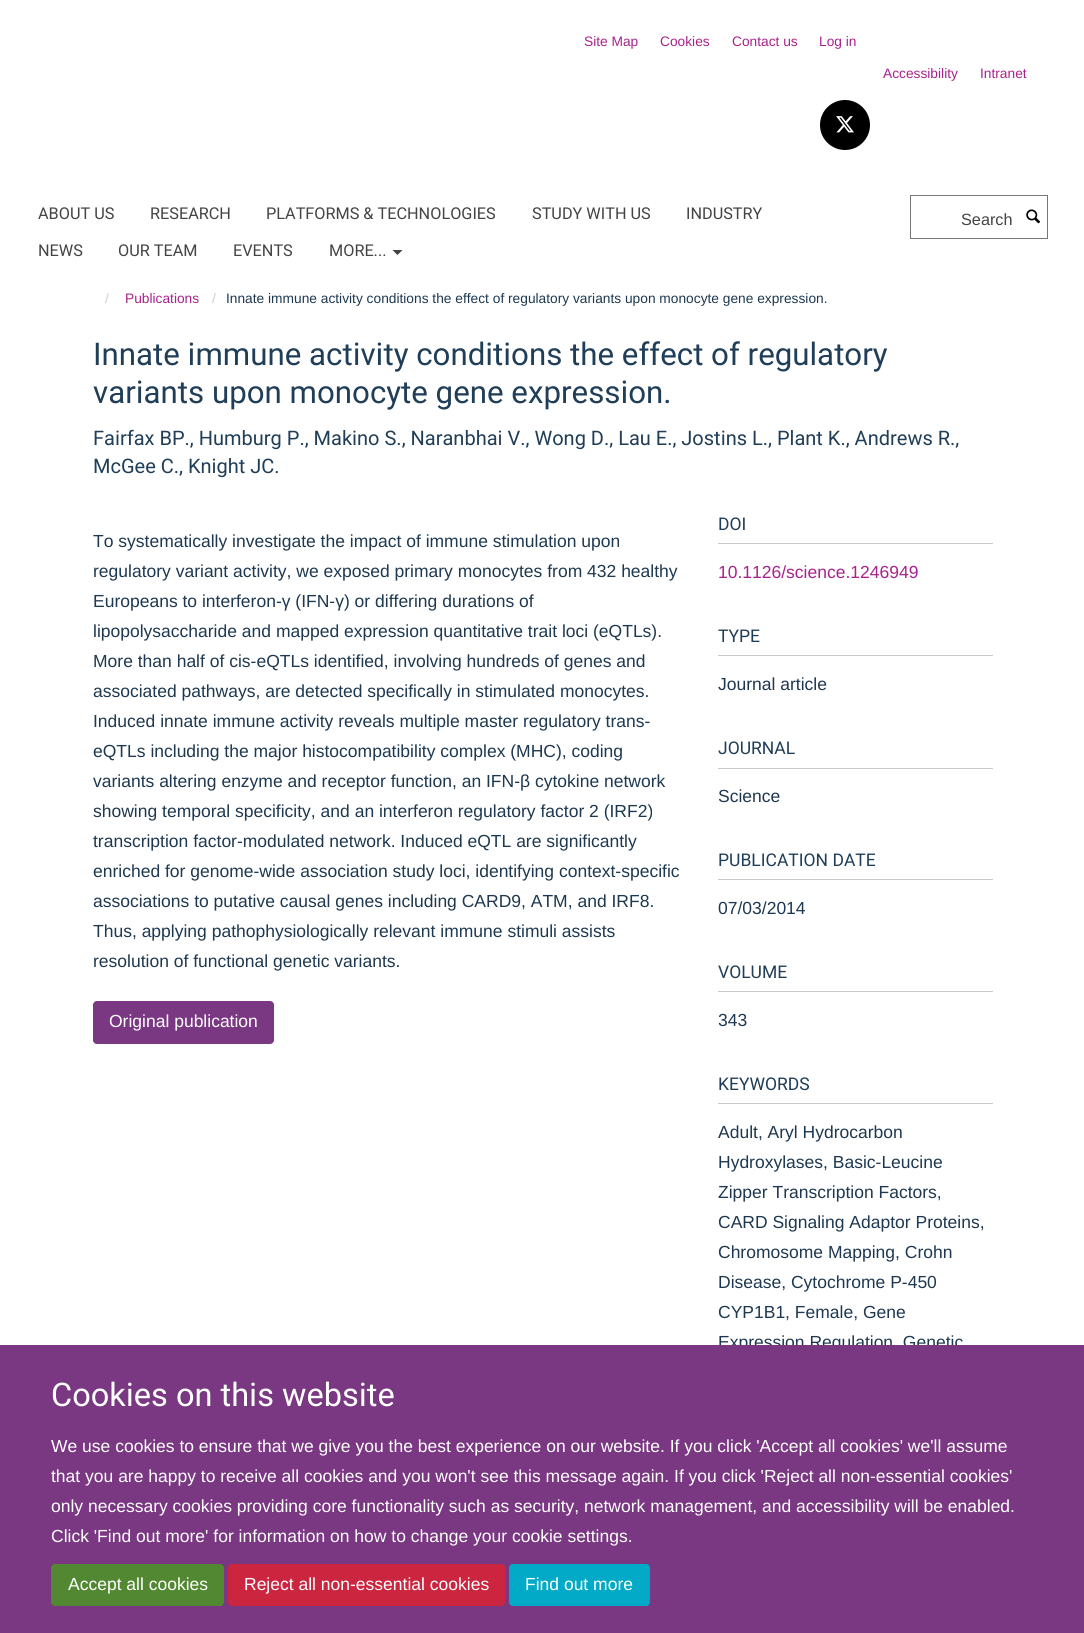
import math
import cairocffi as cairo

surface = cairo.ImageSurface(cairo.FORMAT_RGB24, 1084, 1633)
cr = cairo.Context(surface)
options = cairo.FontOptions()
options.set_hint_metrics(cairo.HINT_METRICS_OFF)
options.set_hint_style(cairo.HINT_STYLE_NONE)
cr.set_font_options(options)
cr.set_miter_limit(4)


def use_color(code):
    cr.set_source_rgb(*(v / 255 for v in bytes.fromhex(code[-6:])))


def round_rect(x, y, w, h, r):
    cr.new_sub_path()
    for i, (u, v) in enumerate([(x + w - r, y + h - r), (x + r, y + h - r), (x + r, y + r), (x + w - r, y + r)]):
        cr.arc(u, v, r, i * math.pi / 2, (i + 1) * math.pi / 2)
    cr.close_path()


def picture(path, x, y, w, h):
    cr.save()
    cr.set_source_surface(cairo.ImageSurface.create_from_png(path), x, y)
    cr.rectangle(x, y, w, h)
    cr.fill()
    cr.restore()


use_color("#ffffff")
cr.paint()
cr.select_font_face("Liberation Sans")
cr.set_font_size(13.75)
use_color("#a8228b")
cr.move_to(584, 46)
cr.show_text("Site Map")
cr.move_to(660, 46)
cr.show_text("Cookies")
cr.move_to(732, 46)
cr.show_text("Contact us")
cr.move_to(819, 46)
cr.show_text("Log in")
cr.move_to(883, 78)
cr.show_text("Accessibility")
cr.move_to(980, 78)
cr.show_text("Intranet")
use_color("#000000")
cr.new_path()
cr.arc(845, 125, 25, 0, 2 * math.pi)
cr.fill()
picture("img1.png", 836, 116, 18, 17)
cr.select_font_face("Heebo")
cr.set_font_size(16.25)
use_color("#444444")
cr.move_to(38, 219)
cr.show_text("ABOUT US")
cr.move_to(150, 219)
cr.show_text("RESEARCH")
cr.move_to(266, 219)
cr.show_text("PLATFORMS & TECHNOLOGIES")
cr.move_to(532, 219)
cr.show_text("STUDY WITH US")
cr.move_to(686, 219)
cr.show_text("INDUSTRY")
cr.move_to(38, 256)
cr.show_text("NEWS")
cr.move_to(118, 256)
cr.show_text("OUR TEAM")
cr.move_to(233, 256)
cr.show_text("EVENTS")
cr.move_to(329, 256)
cr.show_text("MORE...")
cr.new_path()
cr.move_to(392.5, 250)
cr.line_to(402.5, 250)
cr.line_to(397.5, 255)
cr.close_path()
cr.fill()
cr.rectangle(910.5, 195.5, 137, 43)
use_color("#777777")
cr.set_line_width(1)
cr.stroke()
cr.select_font_face("Liberation Sans")
use_color("#444444")
cr.move_to(961, 225)
cr.show_text("Search")
picture("img2.png", 1026, 209, 14, 15)
cr.set_font_size(13.75)
use_color("#cccccc")
cr.move_to(105, 303)
cr.show_text("/")
use_color("#a8228b")
cr.move_to(125, 303)
cr.show_text("Publications")
use_color("#cccccc")
cr.move_to(212, 303)
cr.show_text("/")
use_color("#1d3850")
cr.move_to(226, 303)
cr.show_text("Innate immune activity conditions the effect of regulatory variants upon monocyte gene expression.")
cr.select_font_face("Heebo")
cr.set_font_size(31.25)
use_color("#203e58")
cr.move_to(93, 365)
cr.show_text("Innate immune activity conditions the effect of regulatory")
cr.move_to(93, 403)
cr.show_text("variants upon monocyte gene expression.")
cr.set_font_size(20)
cr.move_to(93, 445)
cr.show_text("Fairfax BP., Humburg P., Makino S., Naranbhai V., Wong D., Lau E., Jostins L., Plant K., Andrews R.,")
cr.move_to(93, 473)
cr.show_text("McGee C., Knight JC.")
cr.select_font_face("Liberation Sans")
cr.set_font_size(17.5)
use_color("#1d3850")
cr.move_to(93, 547)
cr.show_text("To systematically investigate the impact of immune stimulation upon")
cr.move_to(93, 577)
cr.show_text("regulatory variant activity, we exposed primary monocytes from 432 healthy")
cr.move_to(93, 607)
cr.show_text("Europeans to interferon-γ (IFN-γ) or differing durations of")
cr.move_to(93, 637)
cr.show_text("lipopolysaccharide and mapped expression quantitative trait loci (eQTLs).")
cr.move_to(93, 667)
cr.show_text("More than half of cis-eQTLs identified, involving hundreds of genes and")
cr.move_to(93, 697)
cr.show_text("associated pathways, are detected specifically in stimulated monocytes.")
cr.move_to(93, 727)
cr.show_text("Induced innate immune activity reveals multiple master regulatory trans-")
cr.move_to(93, 757)
cr.show_text("eQTLs including the major histocompatibility complex (MHC), coding")
cr.move_to(93, 787)
cr.show_text("variants altering enzyme and receptor function, an IFN-β cytokine network")
cr.move_to(93, 817)
cr.show_text("showing temporal specificity, and an interferon regulatory factor 2 (IRF2)")
cr.move_to(93, 847)
cr.show_text("transcription factor-modulated network. Induced eQTL are significantly")
cr.move_to(93, 877)
cr.show_text("enriched for genome-wide association study loci, identifying context-specific")
cr.move_to(93, 907)
cr.show_text("associations to putative causal genes including CARD9, ATM, and IRF8.")
cr.move_to(93, 937)
cr.show_text("Thus, applying pathophysiologically relevant immune stimuli assists")
cr.move_to(93, 967)
cr.show_text("resolution of functional genetic variants.")
use_color("#7a3782")
round_rect(93.5, 1001.5, 180, 42, 3.5)
cr.fill_preserve()
cr.stroke()
use_color("#ffffff")
cr.move_to(109, 1027)
cr.show_text("Original publication")
use_color("#c6cacf")
cr.rectangle(718, 543, 275, 1)
cr.fill()
cr.select_font_face("Heebo")
use_color("#203e58")
cr.move_to(718, 530)
cr.show_text("DOI")
cr.select_font_face("Liberation Sans")
use_color("#a8228b")
cr.move_to(718, 578)
cr.show_text("10.1126/science.1246949")
use_color("#c6cacf")
cr.rectangle(718, 655, 275, 1)
cr.fill()
cr.select_font_face("Heebo")
use_color("#203e58")
cr.move_to(718, 642)
cr.show_text("TYPE")
cr.select_font_face("Liberation Sans")
use_color("#1d3850")
cr.move_to(718, 690)
cr.show_text("Journal article")
use_color("#c6cacf")
cr.rectangle(718, 768, 275, 1)
cr.fill()
cr.select_font_face("Heebo")
use_color("#203e58")
cr.move_to(718, 754)
cr.show_text("JOURNAL")
cr.select_font_face("Liberation Sans")
use_color("#1d3850")
cr.move_to(718, 802)
cr.show_text("Science")
use_color("#c6cacf")
cr.rectangle(718, 879, 275, 1)
cr.fill()
cr.select_font_face("Heebo")
use_color("#203e58")
cr.move_to(718, 866)
cr.show_text("PUBLICATION DATE")
cr.select_font_face("Liberation Sans")
use_color("#1d3850")
cr.move_to(718, 914)
cr.show_text("07/03/2014")
use_color("#c6cacf")
cr.rectangle(718, 991, 275, 1)
cr.fill()
cr.select_font_face("Heebo")
use_color("#203e58")
cr.move_to(718, 978)
cr.show_text("VOLUME")
cr.select_font_face("Liberation Sans")
use_color("#1d3850")
cr.move_to(718, 1026)
cr.show_text("343")
use_color("#c6cacf")
cr.rectangle(718, 1103, 275, 1)
cr.fill()
cr.select_font_face("Heebo")
use_color("#203e58")
cr.move_to(718, 1090)
cr.show_text("KEYWORDS")
cr.select_font_face("Liberation Sans")
use_color("#1d3850")
cr.move_to(718, 1138)
cr.show_text("Adult, Aryl Hydrocarbon")
cr.move_to(718, 1168)
cr.show_text("Hydroxylases, Basic-Leucine")
cr.move_to(718, 1198)
cr.show_text("Zipper Transcription Factors,")
cr.move_to(718, 1228)
cr.show_text("CARD Signaling Adaptor Proteins,")
cr.move_to(718, 1258)
cr.show_text("Chromosome Mapping, Crohn")
cr.move_to(718, 1288)
cr.show_text("Disease, Cytochrome P-450")
cr.move_to(718, 1318)
cr.show_text("CYP1B1, Female, Gene")
cr.move_to(718, 1348)
cr.show_text("Expression Regulation, Genetic")
use_color("#7a3782")
cr.rectangle(0, 1345, 1084, 288)
cr.fill()
cr.select_font_face("Heebo")
cr.set_font_size(32.5)
use_color("#ffffff")
cr.move_to(51, 1406)
cr.show_text("Cookies on this website")
cr.select_font_face("Liberation Sans")
cr.set_font_size(17.5)
cr.move_to(51, 1452)
cr.show_text("We use cookies to ensure that we give you the best experience on our website. If you click 'Accept all cookies' we'll assume")
cr.move_to(51, 1482)
cr.show_text("that you are happy to receive all cookies and you won't see this message again. If you click 'Reject all non-essential cookies'")
cr.move_to(51, 1512)
cr.show_text("only necessary cookies providing core functionality such as security, network management, and accessibility will be enabled.")
cr.move_to(51, 1542)
cr.show_text("Click 'Find out more' for information on how to change your cookie settings.")
use_color("#518831")
round_rect(51.5, 1564.5, 172, 41, 3.5)
cr.fill_preserve()
cr.stroke()
use_color("#ffffff")
cr.move_to(68, 1590)
cr.show_text("Accept all cookies")
use_color("#cc253f")
round_rect(228.5, 1564.5, 276, 41, 3.5)
cr.fill_preserve()
cr.stroke()
use_color("#ffffff")
cr.move_to(244, 1590)
cr.show_text("Reject all non-essential cookies")
use_color("#02aac7")
round_rect(509.5, 1564.5, 140, 41, 3.5)
cr.fill_preserve()
cr.stroke()
use_color("#ffffff")
cr.move_to(525, 1590)
cr.show_text("Find out more")
surface.write_to_png("result.png")
